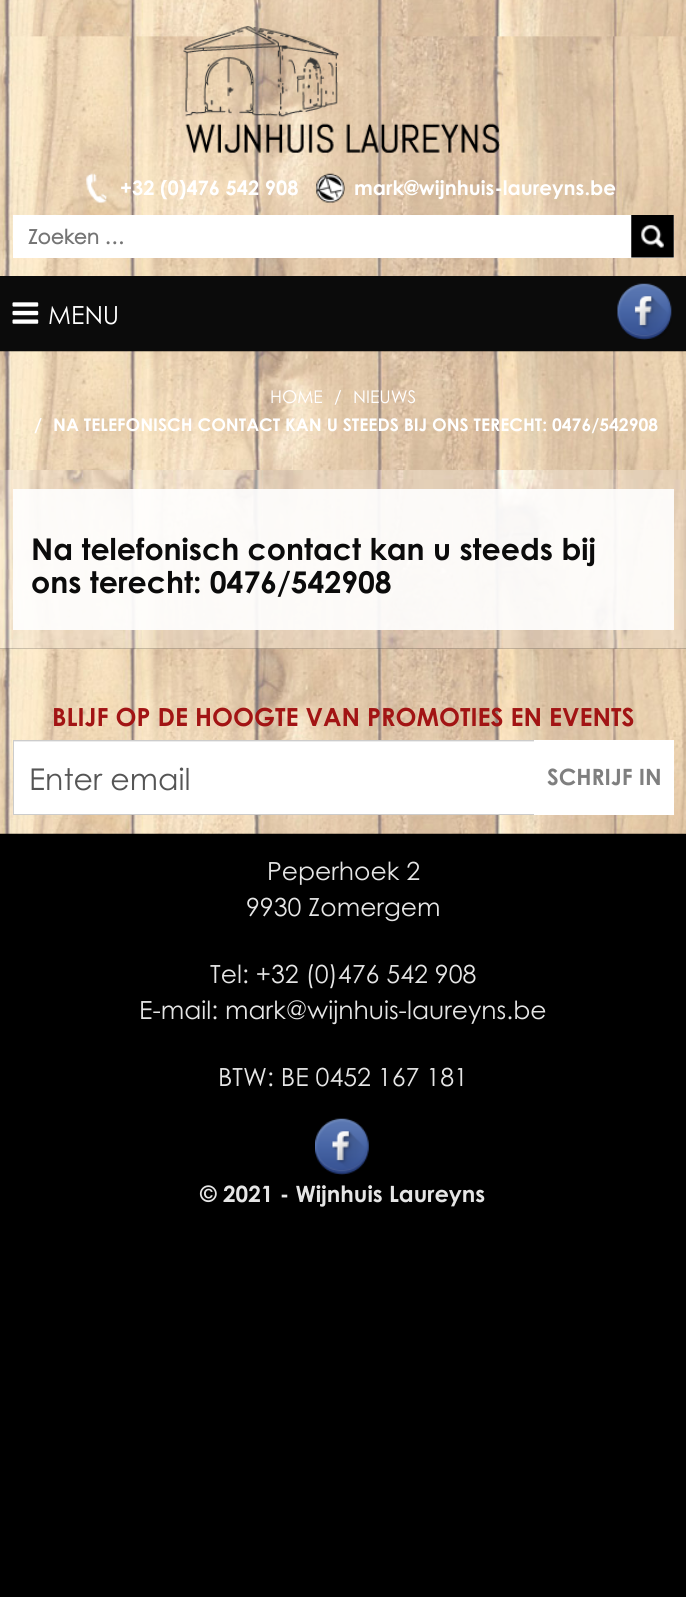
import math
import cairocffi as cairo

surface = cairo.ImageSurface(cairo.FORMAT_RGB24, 686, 1597)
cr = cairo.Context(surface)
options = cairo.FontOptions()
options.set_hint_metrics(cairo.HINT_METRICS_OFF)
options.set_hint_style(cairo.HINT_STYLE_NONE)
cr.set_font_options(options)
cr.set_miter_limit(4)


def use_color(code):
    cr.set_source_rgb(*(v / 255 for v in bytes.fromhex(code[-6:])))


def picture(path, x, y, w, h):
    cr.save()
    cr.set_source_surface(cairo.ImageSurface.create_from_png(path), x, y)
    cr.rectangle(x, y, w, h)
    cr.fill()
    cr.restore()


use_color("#000000")
cr.paint()
picture("img1.png", 0, 0, 686, 276)
picture("img2.png", 183, 26, 317, 127)
picture("img3.png", 86, 173, 21, 30)
cr.select_font_face("Century Gothic", cairo.FONT_SLANT_NORMAL, cairo.FONT_WEIGHT_BOLD)
cr.set_font_size(20)
use_color("#ffffff")
cr.move_to(120, 195)
cr.show_text("+32 (0)476 542 908")
picture("img4.png", 316, 173, 29, 30)
cr.move_to(354, 195)
cr.show_text("mark@wijnhuis-laureyns.be")
cr.rectangle(13, 215, 661, 43)
cr.fill()
cr.select_font_face("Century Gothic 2", cairo.FONT_SLANT_NORMAL, cairo.FONT_WEIGHT_BOLD)
use_color("#757575")
cr.move_to(28, 244)
cr.show_text("Zoeken …")
picture("img5.png", 631, 215, 43, 43)
use_color("#0b0b0b")
cr.rectangle(0, 276, 686, 75)
cr.fill()
picture("img6.png", 12, 302, 27, 22)
cr.select_font_face("Century Gothic")
cr.set_font_size(25)
use_color("#ffffff")
cr.move_to(48, 324)
cr.show_text("MENU")
picture("img7.png", 617, 283, 55, 57)
picture("img8.png", 0, 351, 686, 119)
cr.set_font_size(17.5)
cr.move_to(270, 403)
cr.show_text("HOME")
cr.move_to(334, 403)
cr.show_text("/")
cr.move_to(353, 403)
cr.show_text("NIEUWS")
cr.select_font_face("Century Gothic", cairo.FONT_SLANT_NORMAL, cairo.FONT_WEIGHT_BOLD)
cr.move_to(34, 431)
cr.show_text("/")
cr.move_to(53, 431)
cr.show_text("NA TELEFONISCH CONTACT KAN U STEEDS BIJ ONS TERECHT: 0476/542908")
picture("img9.png", 0, 470, 686, 179)
cr.set_source_rgba(1, 1, 1, 0.9)
cr.rectangle(13, 489, 661, 141)
cr.fill()
cr.set_font_size(30)
use_color("#0b0b0b")
cr.move_to(31, 560)
cr.show_text("Na telefonisch contact kan u steeds bij")
cr.move_to(31, 593)
cr.show_text("ons terecht: 0476/542908")
picture("img10.png", 0, 648, 686, 186)
cr.set_font_size(25)
use_color("#a21414")
cr.move_to(52, 726)
cr.show_text("BLIJF OP DE HOOGTE VAN PROMOTIES EN EVENTS")
use_color("#ffffff")
cr.rectangle(14, 742, 520, 72)
cr.fill()
use_color("#ececec")
cr.rectangle(14, 741, 520, 1)
cr.fill()
cr.rectangle(13.5, 740.5, 660, 74)
use_color("#cccccc")
cr.set_line_width(1)
cr.stroke()
cr.select_font_face("Century Gothic")
cr.set_font_size(30)
use_color("#555555")
cr.move_to(29, 790)
cr.show_text("Enter email")
use_color("#ffffff")
cr.rectangle(534, 740, 140, 75)
cr.fill()
cr.select_font_face("Century Gothic", cairo.FONT_SLANT_NORMAL, cairo.FONT_WEIGHT_BOLD)
cr.set_font_size(22.5)
use_color("#7f7f7f")
cr.move_to(547, 785)
cr.show_text("SCHRIJF IN")
cr.select_font_face("Century Gothic")
cr.set_font_size(25)
use_color("#e5e5e5")
cr.move_to(267, 880)
cr.show_text("Peperhoek 2")
cr.move_to(246, 916)
cr.show_text("9930 Zomergem")
cr.move_to(210, 983)
cr.show_text("Tel: +32 (0)476 542 908")
cr.move_to(139, 1019)
cr.show_text("E-mail: mark@wijnhuis-laureyns.be")
cr.move_to(218, 1086)
cr.show_text("BTW: BE 0452 167 181")
picture("img11.png", 315, 1118, 54, 57)
cr.select_font_face("Century Gothic", cairo.FONT_SLANT_NORMAL, cairo.FONT_WEIGHT_BOLD)
cr.set_font_size(22.5)
cr.move_to(200, 1202)
cr.show_text("© 2021 - Wijnhuis Laureyns")
surface.write_to_png("result.png")
